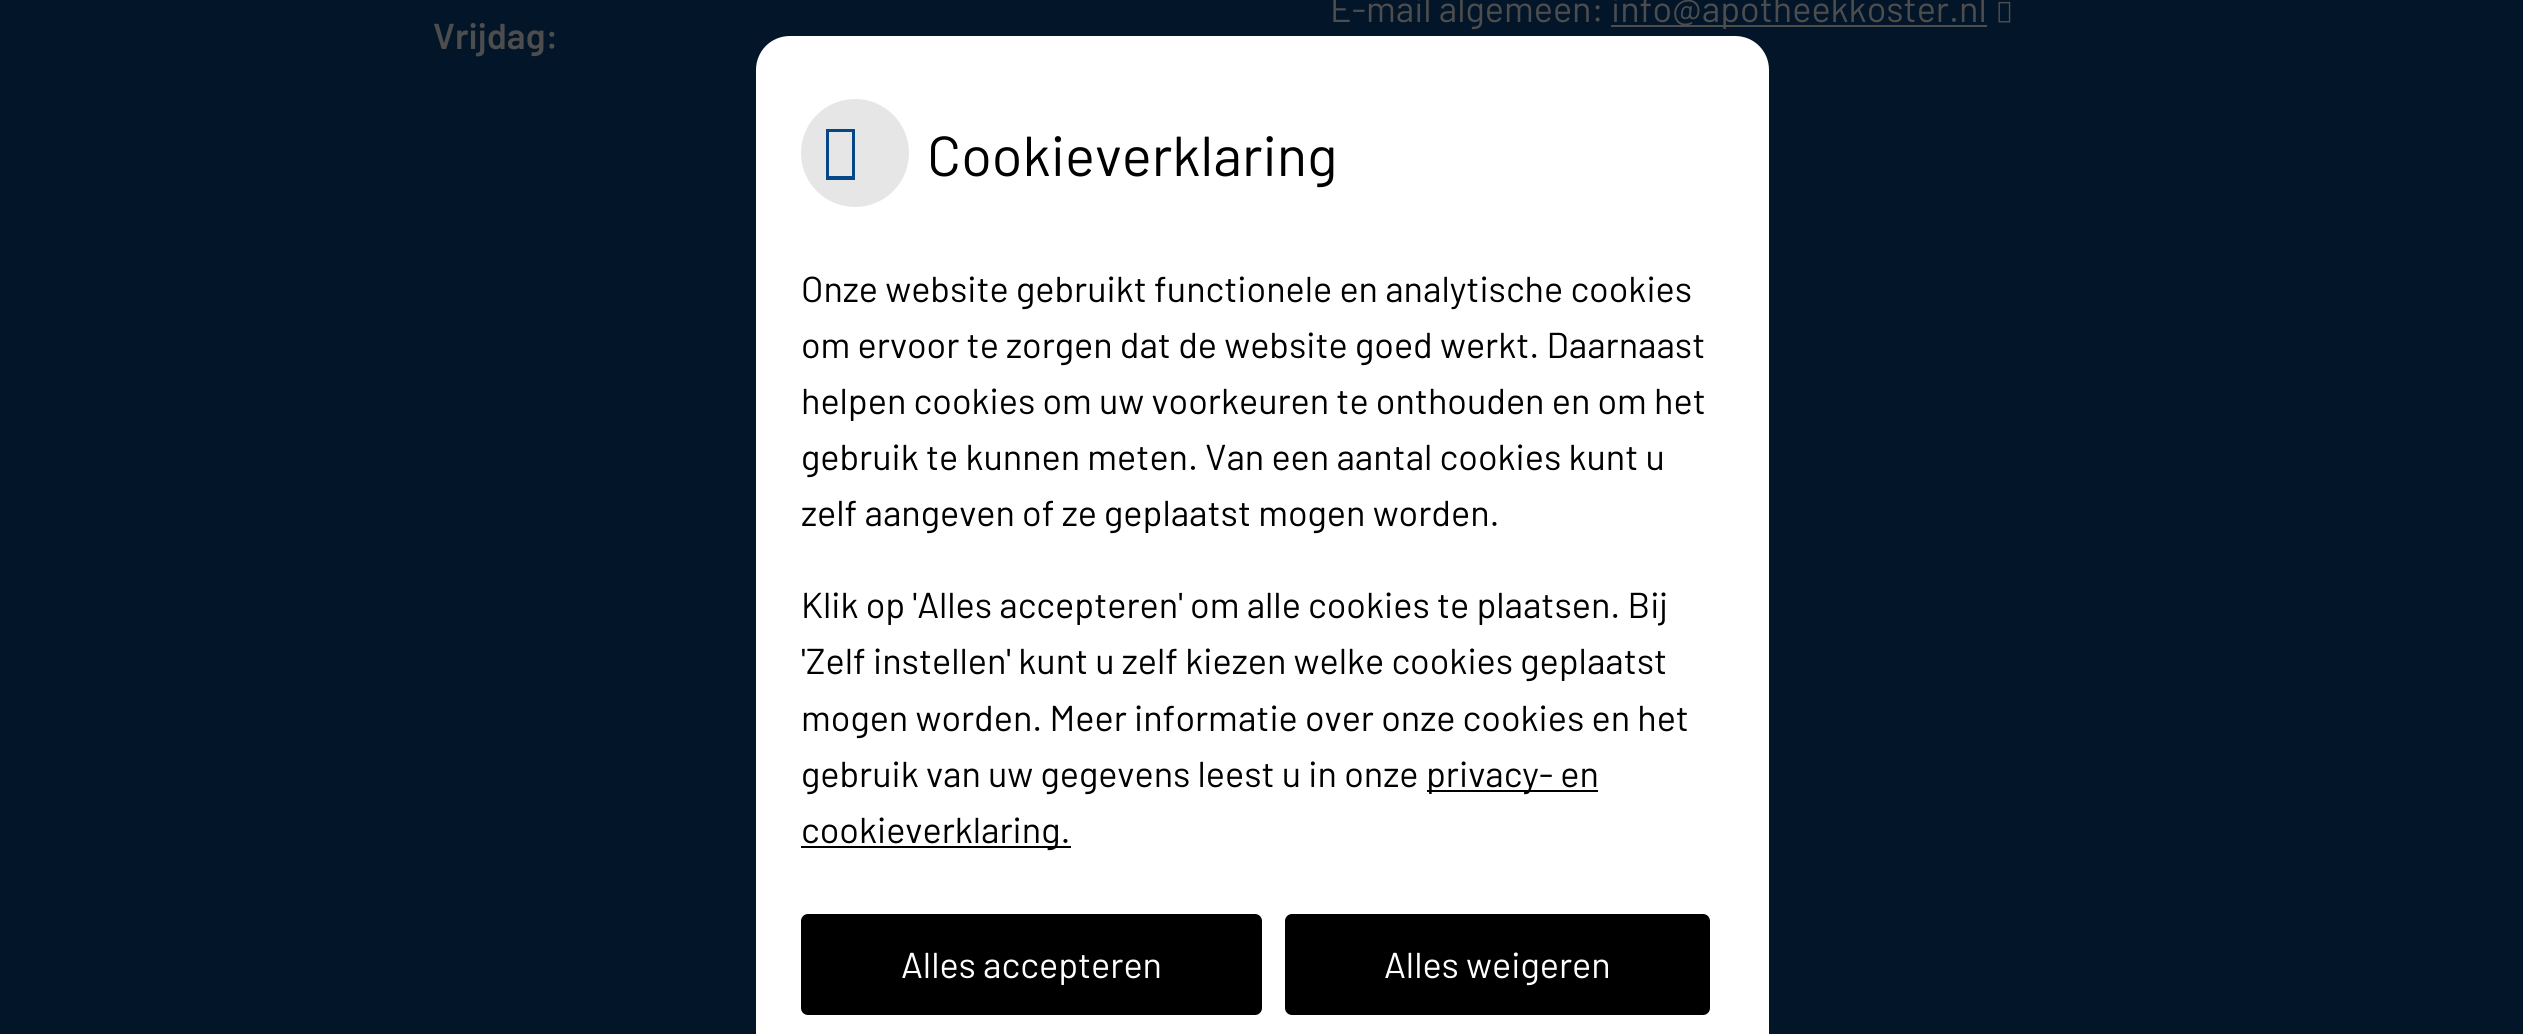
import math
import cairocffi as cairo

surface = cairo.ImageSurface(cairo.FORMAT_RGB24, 2523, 1034)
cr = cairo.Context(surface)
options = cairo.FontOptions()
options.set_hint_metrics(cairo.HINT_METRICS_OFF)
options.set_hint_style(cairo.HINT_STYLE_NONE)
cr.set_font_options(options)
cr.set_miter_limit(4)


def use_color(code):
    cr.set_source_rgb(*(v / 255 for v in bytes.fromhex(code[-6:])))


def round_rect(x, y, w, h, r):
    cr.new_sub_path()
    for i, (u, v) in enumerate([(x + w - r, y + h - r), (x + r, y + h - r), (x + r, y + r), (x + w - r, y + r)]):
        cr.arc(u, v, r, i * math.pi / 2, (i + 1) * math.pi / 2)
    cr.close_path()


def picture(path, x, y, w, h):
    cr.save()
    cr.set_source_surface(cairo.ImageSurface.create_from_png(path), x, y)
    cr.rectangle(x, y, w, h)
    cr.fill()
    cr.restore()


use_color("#021529")
cr.paint()
cr.select_font_face("Barlow")
cr.set_font_size(36)
use_color("#4d4d4d")
cr.move_to(1330, 22)
cr.show_text("E-mail algemeen:")
cr.rectangle(1611, 25, 376, 2)
cr.fill()
cr.move_to(1611, 22)
cr.show_text("info@apotheekkoster.nl")
picture("img1.png", 1998, 1, 13, 22)
cr.select_font_face("Barlow SemiBold")
cr.move_to(433, 49)
cr.show_text("Vrijdag:")
use_color("#ffffff")
cr.new_path()
cr.move_to(790, 36)
cr.line_to(1735, 36)
cr.curve_to(1754, 36, 1769, 51, 1769, 70)
cr.line_to(1769, 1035)
cr.line_to(756, 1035)
cr.line_to(756, 70)
cr.curve_to(756, 51, 771, 36, 790, 36)
cr.close_path()
cr.fill()
use_color("#e6e6e6")
cr.arc(855, 153, 54, 0, 2 * math.pi)
cr.fill()
use_color("#064787")
cr.new_path()
cr.move_to(826, 180)
cr.line_to(826, 129)
cr.line_to(855, 129)
cr.line_to(855, 180)
cr.close_path()
cr.move_to(829, 176)
cr.line_to(852, 176)
cr.line_to(852, 132)
cr.line_to(829, 132)
cr.close_path()
cr.fill()
cr.select_font_face("Barlow")
cr.set_font_size(56.25)
use_color("#000000")
cr.move_to(927, 176)
cr.show_text("Cookieverklaring")
cr.set_font_size(36)
cr.move_to(801, 302)
cr.show_text("Onze website gebruikt functionele en analytische cookies")
cr.move_to(801, 358)
cr.show_text("om ervoor te zorgen dat de website goed werkt. Daarnaast")
cr.move_to(801, 414)
cr.show_text("helpen cookies om uw voorkeuren te onthouden en om het")
cr.move_to(801, 470)
cr.show_text("gebruik te kunnen meten. Van een aantal cookies kunt u")
cr.move_to(801, 526)
cr.show_text("zelf aangeven of ze geplaatst mogen worden.")
cr.move_to(801, 618)
cr.show_text("Klik op 'Alles accepteren' om alle cookies te plaatsen. Bij")
cr.move_to(801, 674)
cr.show_text("'Zelf instellen' kunt u zelf kiezen welke cookies geplaatst")
cr.move_to(801, 731)
cr.show_text("mogen worden. Meer informatie over onze cookies en het")
cr.move_to(801, 787)
cr.show_text("gebruik van uw gegevens leest u in onze")
cr.rectangle(1427, 790, 171, 2)
cr.fill()
cr.move_to(1426, 787)
cr.show_text("privacy- en")
cr.rectangle(801, 846, 270, 2)
cr.fill()
cr.move_to(801, 843)
cr.show_text("cookieverklaring.")
round_rect(801, 914, 461, 101, 7)
cr.fill()
use_color("#ffffff")
cr.move_to(901, 978)
cr.show_text("Alles accepteren")
use_color("#000000")
round_rect(1285, 914, 425, 101, 7)
cr.fill()
use_color("#ffffff")
cr.move_to(1384, 978)
cr.show_text("Alles weigeren")
surface.write_to_png("result.png")
